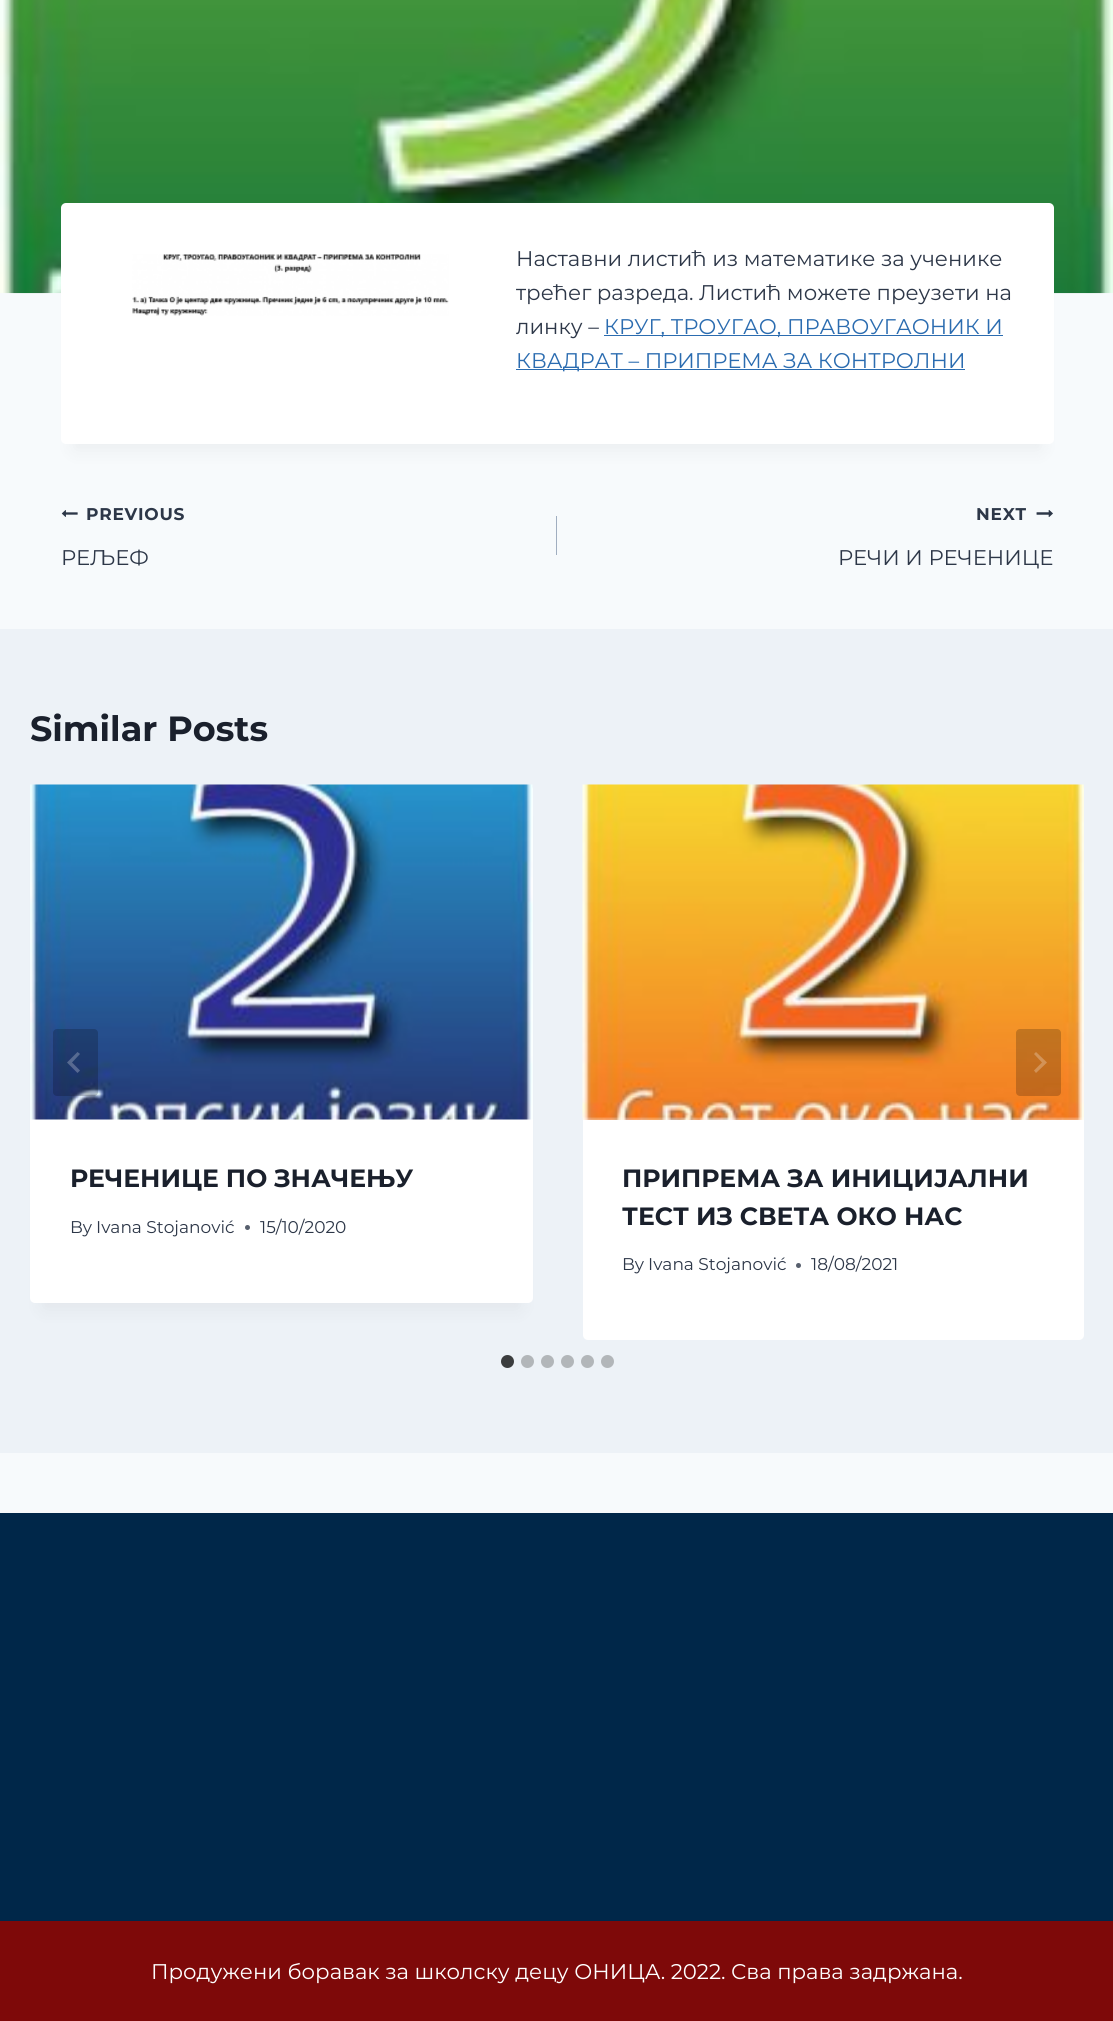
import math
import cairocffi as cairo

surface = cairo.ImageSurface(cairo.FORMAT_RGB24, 1113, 2021)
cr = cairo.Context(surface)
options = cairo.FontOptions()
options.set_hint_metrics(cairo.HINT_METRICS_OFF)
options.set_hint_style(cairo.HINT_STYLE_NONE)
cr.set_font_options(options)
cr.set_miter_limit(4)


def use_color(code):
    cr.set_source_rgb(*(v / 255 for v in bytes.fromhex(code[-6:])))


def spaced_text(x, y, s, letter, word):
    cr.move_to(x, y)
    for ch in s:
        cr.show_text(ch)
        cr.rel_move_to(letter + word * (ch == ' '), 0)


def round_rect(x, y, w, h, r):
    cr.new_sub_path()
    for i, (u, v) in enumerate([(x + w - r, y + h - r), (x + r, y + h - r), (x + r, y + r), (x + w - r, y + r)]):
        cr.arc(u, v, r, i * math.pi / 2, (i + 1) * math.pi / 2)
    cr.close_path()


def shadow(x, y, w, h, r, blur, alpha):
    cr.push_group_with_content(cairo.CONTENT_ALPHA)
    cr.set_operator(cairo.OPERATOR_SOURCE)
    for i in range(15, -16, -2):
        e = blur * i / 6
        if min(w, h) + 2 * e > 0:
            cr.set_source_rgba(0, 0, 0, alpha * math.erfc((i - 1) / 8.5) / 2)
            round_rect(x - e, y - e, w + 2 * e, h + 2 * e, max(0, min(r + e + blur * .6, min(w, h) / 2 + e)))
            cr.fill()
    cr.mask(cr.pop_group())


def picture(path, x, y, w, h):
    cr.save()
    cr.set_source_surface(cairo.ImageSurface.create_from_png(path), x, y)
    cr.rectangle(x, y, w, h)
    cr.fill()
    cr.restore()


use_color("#f7fafc")
cr.paint()
picture("img1.png", 0, 0, 1113, 294)
use_color("#000000")
shadow(74, 234, 967, 216, 0, 9.5, 0.05)
use_color("#ffffff")
round_rect(61, 203, 993, 241, 5)
cr.fill()
picture("img2.png", 132, 254, 317, 62)
cr.select_font_face("Montserrat")
cr.set_font_size(21.25)
use_color("#2d3748")
cr.move_to(516, 266)
cr.show_text("Наставни листић из математике за ученике")
cr.move_to(516, 300)
cr.show_text("трећег разреда. Листић можете преузети на")
cr.move_to(516, 334)
cr.show_text("линку –")
use_color("#2b6cb0")
cr.rectangle(604, 335, 399, 1)
cr.fill()
cr.move_to(604, 334)
cr.show_text("КРУГ, ТРОУГАО, ПРАВОУГАОНИК И")
cr.rectangle(516, 369, 449, 1)
cr.fill()
cr.move_to(516, 368)
cr.show_text("КВАДРАТ – ПРИПРЕМА ЗА КОНТРОЛНИ")
picture("img3.png", 61, 510, 17, 7)
cr.select_font_face("Montserrat", cairo.FONT_SLANT_NORMAL, cairo.FONT_WEIGHT_BOLD)
cr.set_font_size(17)
use_color("#2d3748")
spaced_text(86, 520, "PREVIOUS", 0.75, 0)
cr.select_font_face("Montserrat")
cr.set_font_size(21.25)
cr.move_to(61, 565)
cr.show_text("РЕЉЕФ")
use_color("#a0aec0")
cr.rectangle(556, 516, 1, 39)
cr.fill()
cr.select_font_face("Montserrat", cairo.FONT_SLANT_NORMAL, cairo.FONT_WEIGHT_BOLD)
cr.set_font_size(17)
use_color("#2d3748")
spaced_text(976, 520, "NEXT", 0.75, 0)
picture("img4.png", 1036, 510, 17, 7)
cr.select_font_face("Montserrat")
cr.set_font_size(21.25)
cr.move_to(838, 565)
cr.show_text("РЕЧИ И РЕЧЕНИЦЕ")
use_color("#edf2f7")
cr.rectangle(0, 629, 1113, 824)
cr.fill()
cr.select_font_face("Montserrat", cairo.FONT_SLANT_NORMAL, cairo.FONT_WEIGHT_BOLD)
cr.set_font_size(35)
use_color("#1a202c")
cr.move_to(30, 741)
cr.show_text("Similar Posts")
use_color("#000000")
shadow(43, 816, 477, 493, 0, 9.5, 0.05)
use_color("#ffffff")
round_rect(30, 785, 503, 518, 5)
cr.fill()
picture("img5.png", 30, 784, 503, 336)
cr.set_source_rgba(0, 0, 0, 0.2)
round_rect(53, 1029, 45, 67, 4)
cr.fill()
cr.set_source_rgba(1, 1, 1, 0.25)
cr.new_path()
cr.move_to(77.5, 1052)
cr.line_to(80, 1054)
cr.line_to(72, 1062.5)
cr.line_to(80, 1070.5)
cr.line_to(77.5, 1073)
cr.line_to(67, 1062.5)
cr.close_path()
cr.fill()
use_color("#ffffff")
round_rect(583, 785, 501, 555, 5)
cr.fill()
picture("img6.png", 582, 784, 502, 336)
cr.set_source_rgba(0, 0, 0, 0.2)
round_rect(1016, 1029, 45, 67, 4)
cr.fill()
cr.set_source_rgba(1, 1, 1, 0.25)
cr.new_path()
cr.move_to(1036, 1052)
cr.line_to(1034, 1054)
cr.line_to(1042, 1062.5)
cr.line_to(1034, 1070.5)
cr.line_to(1036, 1073)
cr.line_to(1047, 1062.5)
cr.close_path()
cr.fill()
cr.set_font_size(25)
use_color("#1a202c")
cr.move_to(70, 1187)
cr.show_text("РЕЧЕНИЦЕ ПО ЗНАЧЕЊУ")
cr.select_font_face("Montserrat")
cr.set_font_size(17)
use_color("#2d3748")
cr.move_to(70, 1233)
cr.show_text("By")
cr.move_to(96, 1233)
cr.show_text("Ivana Stojanović")
use_color("#575f6d")
cr.new_path()
cr.arc(247.5, 1227.5, 2.5, 0, 2 * math.pi)
cr.fill()
use_color("#2d3748")
cr.move_to(260, 1233)
cr.show_text("15/10/2020")
cr.select_font_face("Montserrat", cairo.FONT_SLANT_NORMAL, cairo.FONT_WEIGHT_BOLD)
cr.set_font_size(25)
use_color("#1a202c")
cr.move_to(622, 1187)
cr.show_text("ПРИПРЕМА ЗА ИНИЦИЈАЛНИ")
cr.move_to(622, 1225)
cr.show_text("ТЕСТ ИЗ СВЕТА ОКО НАС")
cr.select_font_face("Montserrat")
cr.set_font_size(17)
use_color("#2d3748")
cr.move_to(622, 1270)
cr.show_text("By")
cr.move_to(648, 1270)
cr.show_text("Ivana Stojanović")
use_color("#575f6d")
cr.new_path()
cr.arc(798.5, 1265.5, 2.5, 0, 2 * math.pi)
cr.fill()
use_color("#2d3748")
cr.move_to(811, 1270)
cr.show_text("18/08/2021")
use_color("#3b3d3e")
cr.new_path()
cr.arc(507.5, 1361.5, 6.5, 0, 2 * math.pi)
cr.fill()
use_color("#b2b6b9")
cr.arc(527.5, 1361.5, 6.5, 0, 2 * math.pi)
cr.fill()
cr.arc(547.5, 1361.5, 6.5, 0, 2 * math.pi)
cr.fill()
cr.arc(567.5, 1361.5, 6.5, 0, 2 * math.pi)
cr.fill()
cr.arc(587.5, 1361.5, 6.5, 0, 2 * math.pi)
cr.fill()
cr.arc(607.5, 1361.5, 6.5, 0, 2 * math.pi)
cr.fill()
use_color("#002749")
cr.rectangle(0, 1513, 1113, 408)
cr.fill()
use_color("#7e0909")
cr.rectangle(0, 1921, 1113, 100)
cr.fill()
cr.set_font_size(21.25)
use_color("#ffffff")
cr.move_to(151, 1979)
cr.show_text("Продужени боравак за школску децу ОНИЦА. 2022. Сва права задржана.")
surface.write_to_png("result.png")
